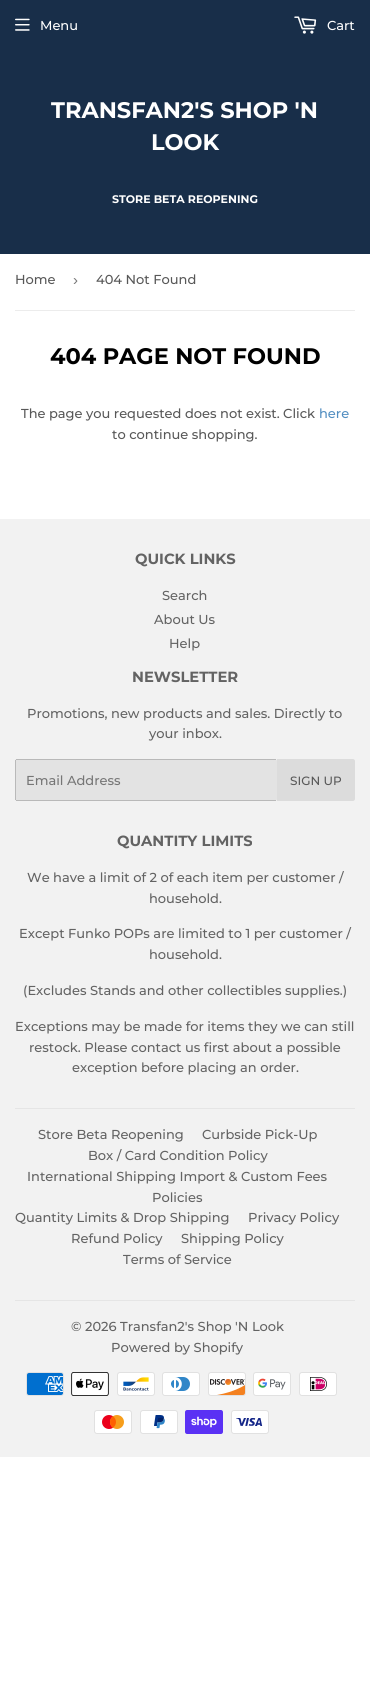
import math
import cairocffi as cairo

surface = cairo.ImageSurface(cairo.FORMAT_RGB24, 370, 1700)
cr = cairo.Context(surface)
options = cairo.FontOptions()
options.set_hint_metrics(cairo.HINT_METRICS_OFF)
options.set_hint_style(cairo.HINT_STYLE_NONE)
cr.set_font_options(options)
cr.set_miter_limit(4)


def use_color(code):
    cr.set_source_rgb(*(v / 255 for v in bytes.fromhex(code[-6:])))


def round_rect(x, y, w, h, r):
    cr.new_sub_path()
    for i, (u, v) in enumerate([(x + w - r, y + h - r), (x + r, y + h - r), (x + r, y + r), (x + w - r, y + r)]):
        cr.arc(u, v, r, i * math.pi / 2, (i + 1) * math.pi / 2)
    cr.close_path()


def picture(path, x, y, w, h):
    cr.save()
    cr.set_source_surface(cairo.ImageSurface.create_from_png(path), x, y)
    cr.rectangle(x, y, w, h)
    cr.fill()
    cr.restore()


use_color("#ffffff")
cr.paint()
use_color("#182e49")
cr.rectangle(0, 0, 370, 254)
cr.fill()
picture("img1.png", 15, 18, 15, 13)
cr.select_font_face("Montserrat Medium")
cr.set_font_size(13)
use_color("#ffffff")
cr.move_to(40, 30)
cr.show_text("Menu")
picture("img2.png", 294, 16, 23, 18)
cr.move_to(327, 30)
cr.show_text("Cart")
cr.select_font_face("Montserrat", cairo.FONT_SLANT_NORMAL, cairo.FONT_WEIGHT_BOLD)
cr.set_font_size(22.5)
cr.move_to(51, 118)
cr.show_text("TRANSFAN2'S SHOP 'N")
cr.move_to(151, 150)
cr.show_text("LOOK")
cr.set_font_size(11)
cr.move_to(112, 203)
cr.show_text("STORE BETA REOPENING")
use_color("#ececec")
cr.rectangle(15, 310, 340, 1)
cr.fill()
cr.select_font_face("Montserrat Medium")
cr.set_font_size(13)
use_color("#585858")
cr.move_to(15, 284)
cr.show_text("Home")
cr.select_font_face("Liberation Sans")
cr.set_font_size(15)
use_color("#767676")
cr.move_to(73, 285)
cr.show_text("›")
cr.select_font_face("Montserrat Medium")
cr.set_font_size(13)
use_color("#585858")
cr.move_to(96, 284)
cr.show_text("404 Not Found")
cr.select_font_face("Montserrat", cairo.FONT_SLANT_NORMAL, cairo.FONT_WEIGHT_BOLD)
cr.set_font_size(22.5)
use_color("#000000")
cr.move_to(50, 364)
cr.show_text("404 PAGE NOT FOUND")
cr.select_font_face("Montserrat Medium")
cr.set_font_size(13)
use_color("#585858")
cr.move_to(21, 418)
cr.show_text("The page you requested does not exist. Click")
use_color("#528ec1")
cr.move_to(319, 418)
cr.show_text("here")
use_color("#585858")
cr.move_to(112, 439)
cr.show_text("to continue shopping.")
use_color("#f2f2f2")
cr.rectangle(0, 519, 370, 938)
cr.fill()
cr.select_font_face("Montserrat", cairo.FONT_SLANT_NORMAL, cairo.FONT_WEIGHT_BOLD)
cr.set_font_size(14.75)
use_color("#636363")
cr.move_to(135, 564)
cr.show_text("QUICK LINKS")
cr.select_font_face("Montserrat Medium")
cr.set_font_size(13)
cr.move_to(162, 600)
cr.show_text("Search")
cr.move_to(154, 624)
cr.show_text("About Us")
cr.move_to(169, 648)
cr.show_text("Help")
cr.select_font_face("Montserrat", cairo.FONT_SLANT_NORMAL, cairo.FONT_WEIGHT_BOLD)
cr.set_font_size(14.75)
cr.move_to(132, 682)
cr.show_text("NEWSLETTER")
cr.select_font_face("Montserrat Medium")
cr.set_font_size(13)
cr.move_to(27, 718)
cr.show_text("Promotions, new products and sales. Directly to")
cr.move_to(149, 738)
cr.show_text("your inbox.")
use_color("#e3e3e3")
round_rect(15, 759, 262, 42, 2)
cr.fill()
use_color("#b9b9b9")
cr.rectangle(16, 759, 260, 1)
cr.fill()
cr.rectangle(16, 800, 260, 1)
cr.fill()
cr.rectangle(15, 760, 1, 40)
cr.fill()
use_color("#767676")
cr.move_to(26, 785)
cr.show_text("Email Address")
use_color("#dcdcdc")
cr.new_path()
cr.move_to(277, 759)
cr.line_to(353, 759)
cr.curve_to(354, 759, 355, 760, 355, 761)
cr.line_to(355, 799)
cr.curve_to(355, 800, 354, 801, 353, 801)
cr.line_to(277, 801)
cr.close_path()
cr.fill()
cr.set_font_size(12)
use_color("#585858")
cr.move_to(290, 785)
cr.show_text("SIGN UP")
cr.select_font_face("Montserrat", cairo.FONT_SLANT_NORMAL, cairo.FONT_WEIGHT_BOLD)
cr.set_font_size(14.75)
use_color("#636363")
cr.move_to(117, 846)
cr.show_text("QUANTITY LIMITS")
cr.select_font_face("Montserrat Medium")
cr.set_font_size(13)
cr.move_to(27, 882)
cr.show_text("We have a limit of 2 of each item per customer /")
cr.move_to(149, 903)
cr.show_text("household.")
cr.move_to(19, 938)
cr.show_text("Except Funko POPs are limited to 1 per customer /")
cr.move_to(149, 959)
cr.show_text("household.")
cr.move_to(23, 995)
cr.show_text("(Excludes Stands and other collectibles supplies.)")
cr.move_to(15, 1031)
cr.show_text("Exceptions may be made for items they we can still")
cr.move_to(29, 1052)
cr.show_text("restock. Please contact us first about a possible")
cr.move_to(72, 1072)
cr.show_text("exception before placing an order.")
use_color("#e5e5e5")
cr.rectangle(15, 1108, 340, 1)
cr.fill()
use_color("#636363")
cr.move_to(38, 1139)
cr.show_text("Store Beta Reopening")
cr.move_to(202, 1139)
cr.show_text("Curbside Pick-Up")
cr.move_to(88, 1160)
cr.show_text("Box / Card Condition Policy")
cr.move_to(27, 1181)
cr.show_text("International Shipping Import & Custom Fees")
cr.move_to(152, 1202)
cr.show_text("Policies")
cr.move_to(15, 1222)
cr.show_text("Quantity Limits & Drop Shipping")
cr.move_to(248, 1222)
cr.show_text("Privacy Policy")
cr.move_to(71, 1243)
cr.show_text("Refund Policy")
cr.move_to(181, 1243)
cr.show_text("Shipping Policy")
cr.move_to(123, 1264)
cr.show_text("Terms of Service")
use_color("#e5e5e5")
cr.rectangle(15, 1300, 340, 1)
cr.fill()
use_color("#636363")
cr.move_to(71, 1331)
cr.show_text("© 2026 Transfan2's Shop 'N Look")
cr.move_to(111, 1352)
cr.show_text("Powered by Shopify")
picture("img3.png", 26, 1372, 38, 24)
picture("img4.png", 71, 1372, 38, 24)
picture("img5.png", 117, 1372, 38, 24)
picture("img6.png", 162, 1372, 38, 24)
picture("img7.png", 208, 1372, 38, 24)
picture("img8.png", 253, 1372, 38, 24)
picture("img9.png", 299, 1372, 38, 24)
picture("img10.png", 94, 1410, 38, 24)
picture("img11.png", 140, 1410, 38, 24)
picture("img12.png", 185, 1410, 38, 24)
picture("img13.png", 231, 1410, 38, 24)
surface.write_to_png("result.png")
